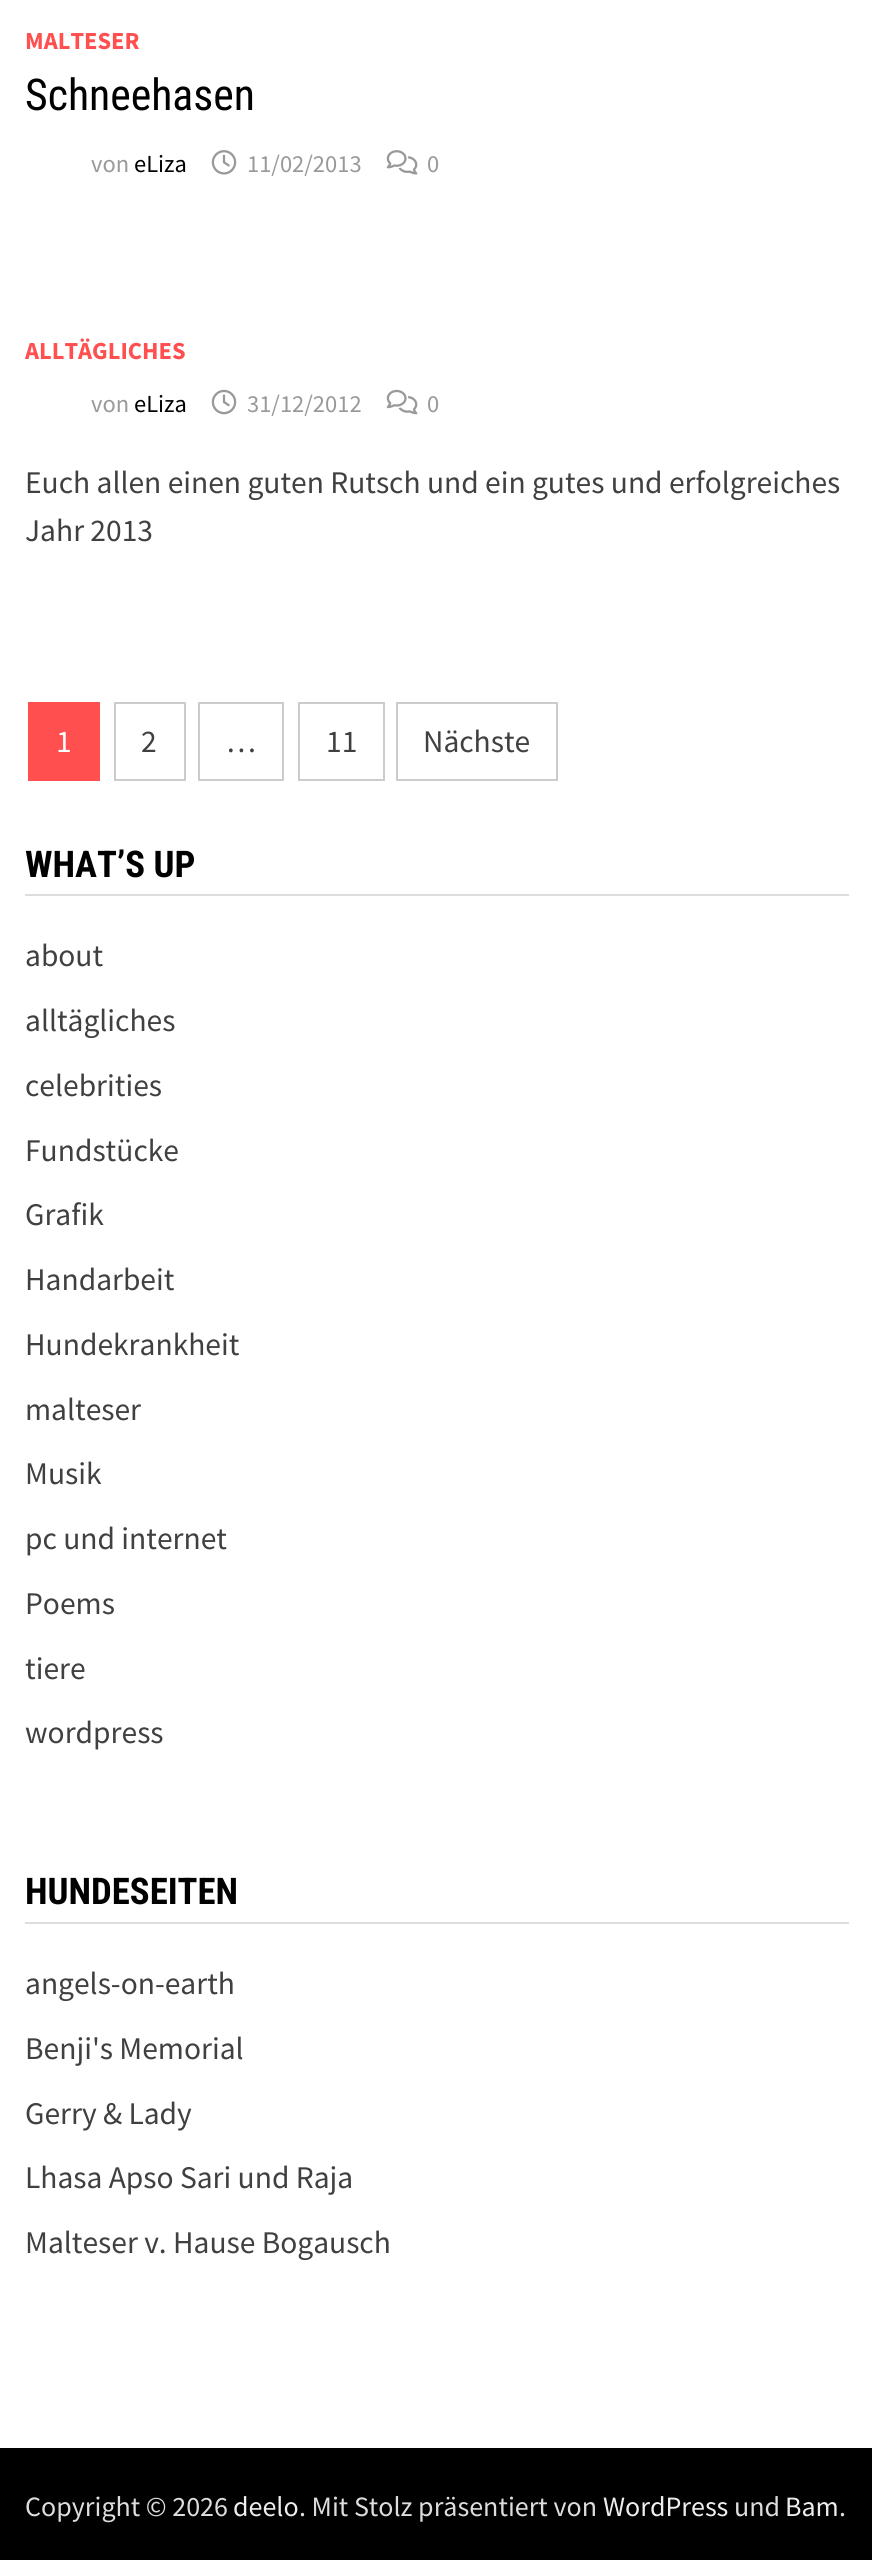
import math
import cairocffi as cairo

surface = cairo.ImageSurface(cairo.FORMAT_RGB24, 872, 2560)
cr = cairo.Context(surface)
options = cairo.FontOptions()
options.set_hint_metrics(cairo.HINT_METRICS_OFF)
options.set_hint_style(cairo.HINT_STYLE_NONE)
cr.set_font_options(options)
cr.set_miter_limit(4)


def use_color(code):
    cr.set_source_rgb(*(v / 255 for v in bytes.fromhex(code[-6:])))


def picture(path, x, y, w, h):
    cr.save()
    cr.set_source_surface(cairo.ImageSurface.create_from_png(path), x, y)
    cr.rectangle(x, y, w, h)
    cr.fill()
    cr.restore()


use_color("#ffffff")
cr.paint()
cr.select_font_face("Source Sans Pro", cairo.FONT_SLANT_NORMAL, cairo.FONT_WEIGHT_BOLD)
cr.set_font_size(24.5)
use_color("#ff4f4f")
cr.move_to(25, 49)
cr.show_text("MALTESER")
cr.select_font_face("Roboto Condensed")
cr.set_font_size(43.75)
use_color("#000000")
cr.move_to(25, 110)
cr.show_text("Schneehasen")
cr.select_font_face("Source Sans Pro")
cr.set_font_size(24.5)
use_color("#999999")
cr.move_to(91, 172)
cr.show_text("von")
use_color("#000000")
cr.move_to(134, 172)
cr.show_text("eLiza")
picture("img1.png", 211, 150, 26, 25)
use_color("#999999")
cr.move_to(247, 172)
cr.show_text("11/02/2013")
picture("img2.png", 386, 150, 32, 25)
cr.move_to(427, 172)
cr.show_text("0")
cr.select_font_face("Source Sans Pro", cairo.FONT_SLANT_NORMAL, cairo.FONT_WEIGHT_BOLD)
use_color("#ff4f4f")
cr.move_to(25, 359)
cr.show_text("ALLTÄGLICHES")
cr.select_font_face("Source Sans Pro")
use_color("#999999")
cr.move_to(91, 412)
cr.show_text("von")
use_color("#000000")
cr.move_to(134, 412)
cr.show_text("eLiza")
picture("img3.png", 211, 389, 26, 26)
use_color("#999999")
cr.move_to(247, 412)
cr.show_text("31/12/2012")
picture("img4.png", 386, 389, 32, 26)
cr.move_to(427, 412)
cr.show_text("0")
cr.set_font_size(31.5)
use_color("#404040")
cr.move_to(25, 493)
cr.show_text("Euch allen einen guten Rutsch und ein gutes und erfolgreiches")
cr.move_to(25, 541)
cr.show_text("Jahr 2013")
use_color("#ff4f4f")
cr.rectangle(28, 702, 72, 79)
cr.fill()
use_color("#ffffff")
cr.move_to(56, 752)
cr.show_text("1")
cr.rectangle(115, 703, 70, 77)
use_color("#cccccc")
cr.stroke()
use_color("#404040")
cr.move_to(141, 752)
cr.show_text("2")
cr.rectangle(199, 703, 84, 77)
use_color("#cccccc")
cr.stroke()
use_color("#404040")
cr.move_to(226, 752)
cr.show_text("…")
cr.rectangle(299, 703, 85, 77)
use_color("#cccccc")
cr.stroke()
use_color("#404040")
cr.move_to(326, 752)
cr.show_text("11")
cr.rectangle(397, 703, 160, 77)
use_color("#cccccc")
cr.stroke()
use_color("#404040")
cr.move_to(423, 752)
cr.show_text("Nächste")
use_color("#dddddd")
cr.rectangle(25, 894, 824, 2)
cr.fill()
cr.select_font_face("Roboto Condensed", cairo.FONT_SLANT_NORMAL, cairo.FONT_WEIGHT_BOLD)
cr.set_font_size(36.75)
use_color("#000000")
cr.move_to(25, 877)
cr.show_text("WHAT’S UP")
cr.select_font_face("Source Sans Pro")
cr.set_font_size(31.5)
use_color("#404040")
cr.move_to(25, 966)
cr.show_text("about")
cr.move_to(25, 1031)
cr.show_text("alltägliches")
cr.move_to(25, 1096)
cr.show_text("celebrities")
cr.move_to(25, 1161)
cr.show_text("Fundstücke")
cr.move_to(25, 1225)
cr.show_text("Grafik")
cr.move_to(25, 1290)
cr.show_text("Handarbeit")
cr.move_to(25, 1355)
cr.show_text("Hundekrankheit")
cr.move_to(25, 1420)
cr.show_text("malteser")
cr.move_to(25, 1484)
cr.show_text("Musik")
cr.move_to(25, 1549)
cr.show_text("pc und internet")
cr.move_to(25, 1614)
cr.show_text("Poems")
cr.move_to(25, 1679)
cr.show_text("tiere")
cr.move_to(25, 1743)
cr.show_text("wordpress")
use_color("#dddddd")
cr.rectangle(25, 1922, 824, 2)
cr.fill()
cr.select_font_face("Roboto Condensed", cairo.FONT_SLANT_NORMAL, cairo.FONT_WEIGHT_BOLD)
cr.set_font_size(36.75)
use_color("#000000")
cr.move_to(25, 1904)
cr.show_text("HUNDESEITEN")
cr.select_font_face("Source Sans Pro")
cr.set_font_size(31.5)
use_color("#404040")
cr.move_to(25, 1994)
cr.show_text("angels-on-earth")
cr.move_to(25, 2059)
cr.show_text("Benji's Memorial")
cr.move_to(25, 2124)
cr.show_text("Gerry & Lady")
cr.move_to(25, 2188)
cr.show_text("Lhasa Apso Sari und Raja")
cr.move_to(25, 2253)
cr.show_text("Malteser v. Hause Bogausch")
use_color("#000000")
cr.rectangle(0, 2448, 872, 112)
cr.fill()
cr.set_font_size(28)
use_color("#dddddd")
cr.move_to(25, 2516)
cr.show_text("Copyright © 2026")
use_color("#eeeeee")
cr.move_to(233, 2516)
cr.show_text("deelo")
use_color("#dddddd")
cr.move_to(299, 2516)
cr.show_text(". Mit Stolz präsentiert von")
use_color("#eeeeee")
cr.move_to(603, 2516)
cr.show_text("WordPress")
use_color("#dddddd")
cr.move_to(734, 2516)
cr.show_text("und")
use_color("#eeeeee")
cr.move_to(785, 2516)
cr.show_text("Bam")
use_color("#dddddd")
cr.move_to(839, 2516)
cr.show_text(".")
surface.write_to_png("result.png")
